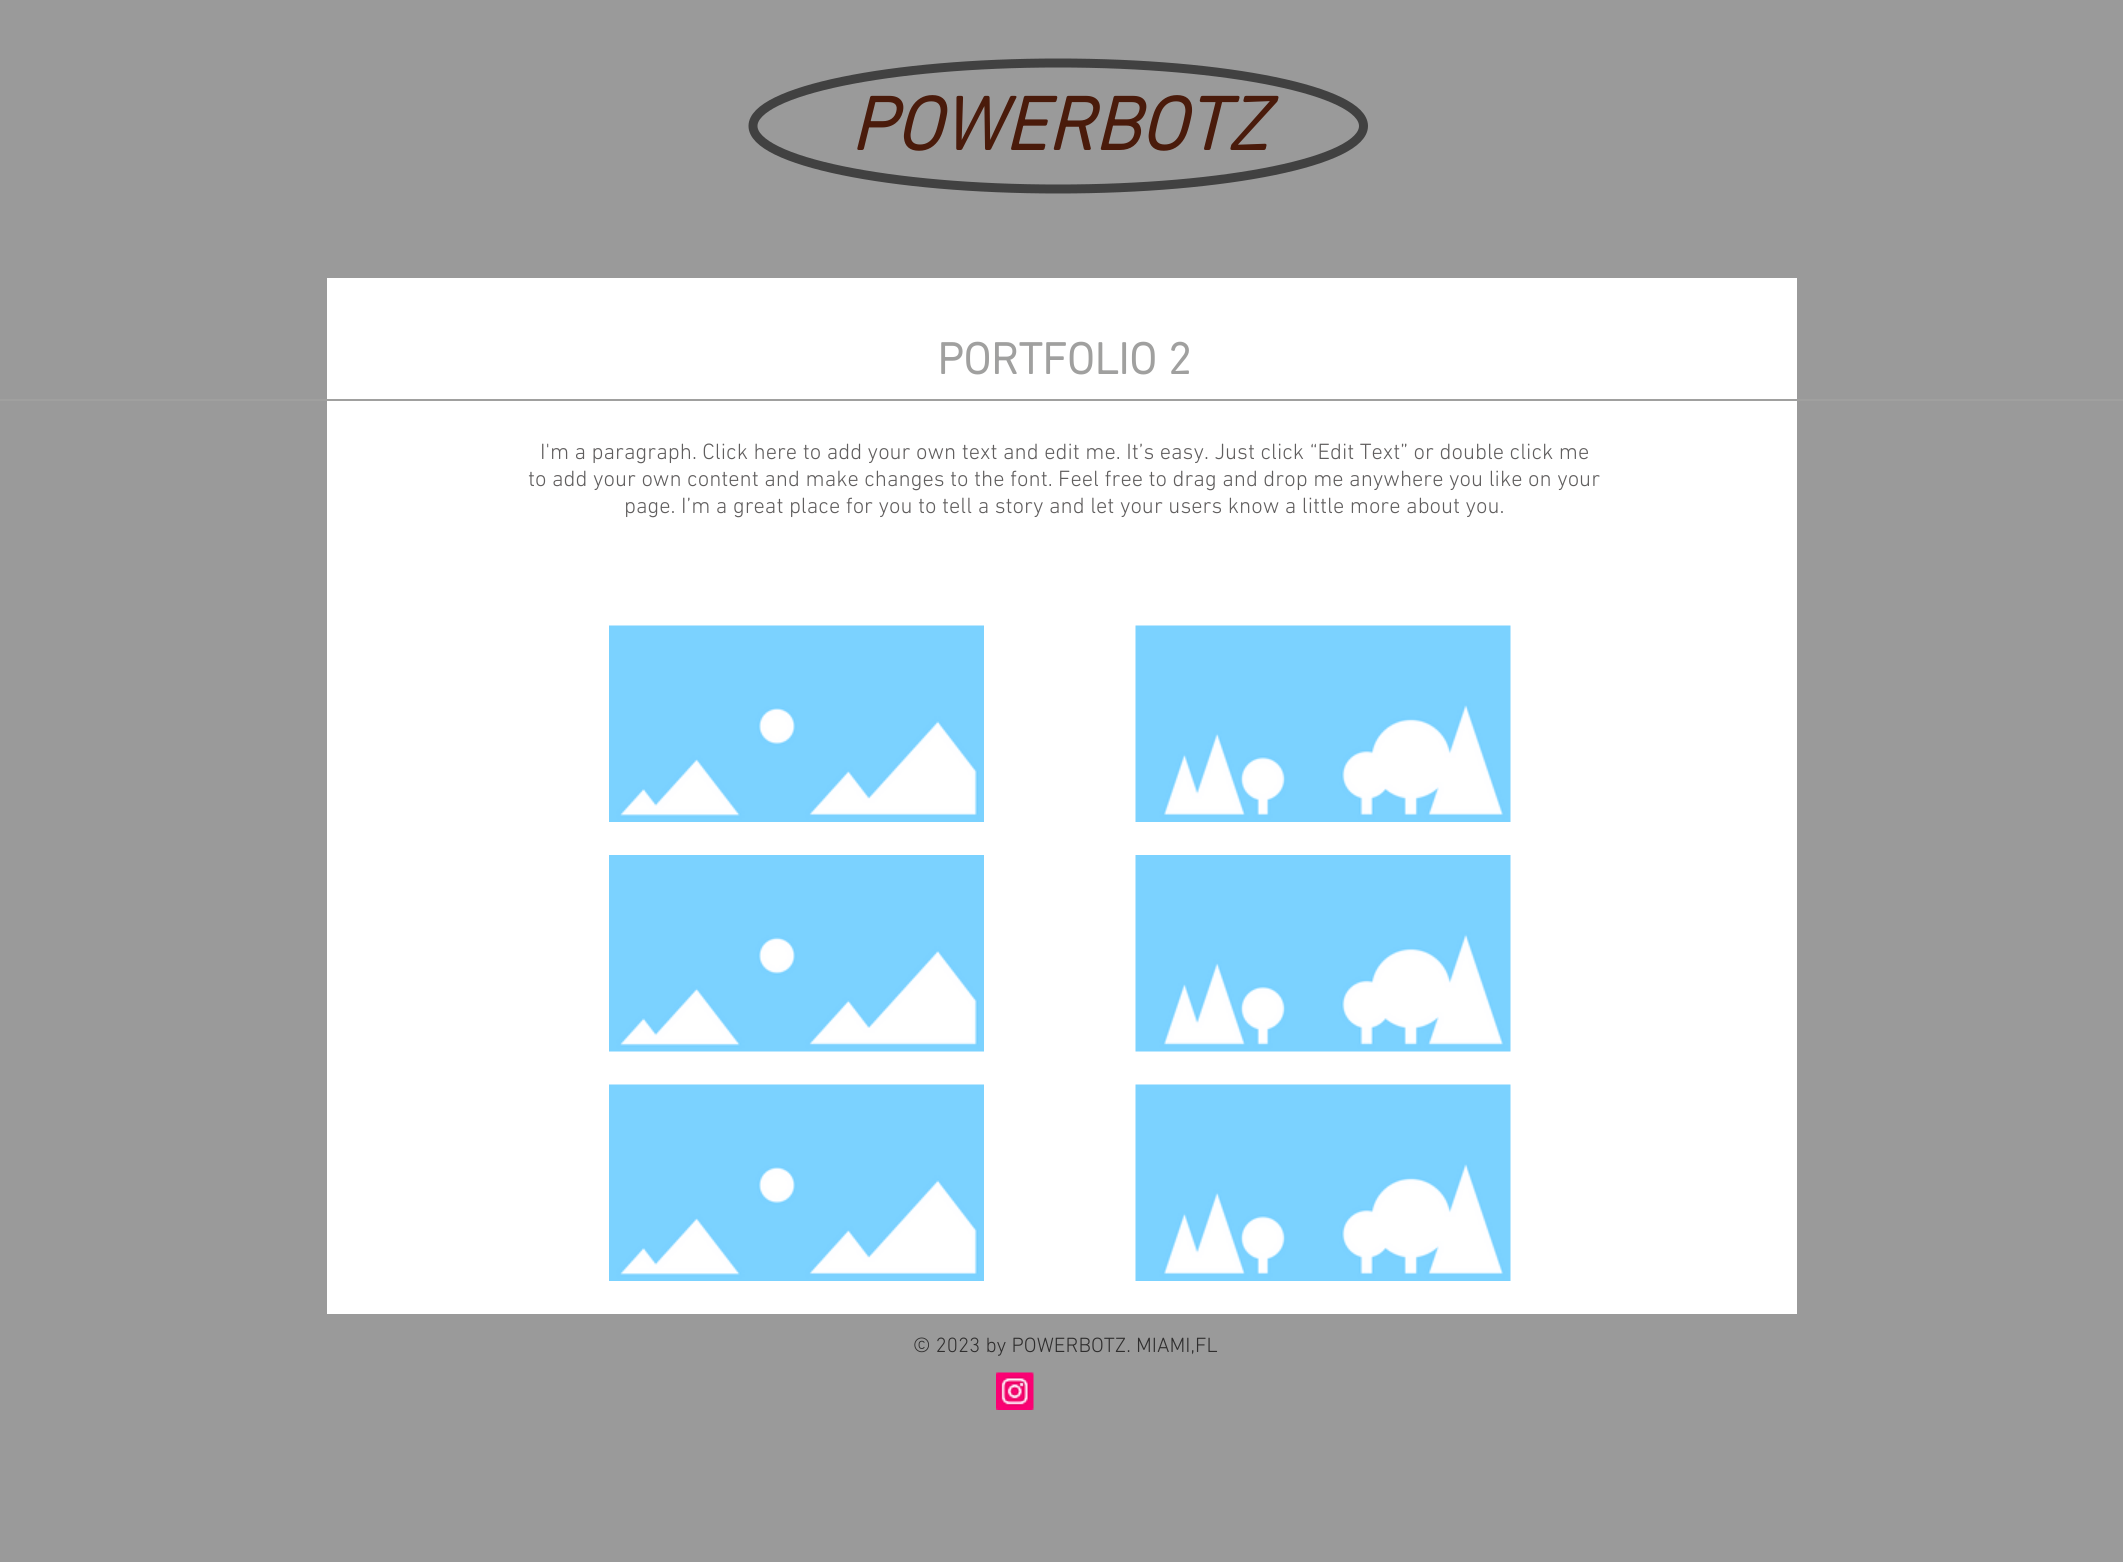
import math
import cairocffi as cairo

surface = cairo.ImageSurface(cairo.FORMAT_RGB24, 2123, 1562)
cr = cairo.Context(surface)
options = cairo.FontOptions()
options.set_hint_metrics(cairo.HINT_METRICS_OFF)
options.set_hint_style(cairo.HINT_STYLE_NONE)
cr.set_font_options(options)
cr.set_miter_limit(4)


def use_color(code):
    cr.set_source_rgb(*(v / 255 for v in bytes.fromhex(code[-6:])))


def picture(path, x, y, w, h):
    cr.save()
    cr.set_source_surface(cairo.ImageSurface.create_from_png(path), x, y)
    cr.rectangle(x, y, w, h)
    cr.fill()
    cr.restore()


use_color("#9a9a9a")
cr.paint()
cr.new_path()
cr.move_to(1058, 63)
cr.curve_to(1227, 63, 1363.5, 91, 1363.5, 126)
cr.curve_to(1363.5, 161, 1227, 189, 1058, 189)
cr.curve_to(889.5, 189, 753, 161, 753, 126)
cr.curve_to(753, 91, 889.5, 63, 1058, 63)
cr.close_path()
use_color("#414141")
cr.set_line_width(9)
cr.stroke()
cr.select_font_face("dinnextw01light", cairo.FONT_SLANT_ITALIC, cairo.FONT_WEIGHT_BOLD)
cr.set_font_size(76.5)
use_color("#4a1b0b")
cr.move_to(850, 150)
cr.show_text("POWERBOTZ")
use_color("#ffffff")
cr.rectangle(327, 278, 1470, 1036)
cr.fill()
cr.select_font_face("dinnextw01light", cairo.FONT_SLANT_NORMAL, cairo.FONT_WEIGHT_BOLD)
cr.set_font_size(45)
use_color("#a0a09f")
cr.move_to(937, 374)
cr.show_text("PORTFOLIO 2")
cr.rectangle(0, 399, 2123, 2)
cr.fill()
cr.select_font_face("dinnextw01light Light")
cr.set_font_size(22.5)
use_color("#605e5e")
cr.move_to(540, 459)
cr.show_text("I'm a paragraph. Click here to add your own text and edit me. It’s easy. Just click “Edit Text” or double click me")
cr.move_to(528, 486)
cr.show_text("to add your own content and make changes to the font. Feel free to drag and drop me anywhere you like on your")
cr.move_to(624, 513)
cr.show_text("page. I’m a great place for you to tell a story and let your users know a little more about you.")
picture("img1.png", 609, 625, 375, 197)
picture("img2.png", 1135, 625, 376, 197)
picture("img3.png", 609, 855, 375, 197)
picture("img4.png", 1135, 855, 376, 197)
picture("img1.png", 609, 1084, 375, 197)
picture("img2.png", 1135, 1084, 376, 197)
cr.set_font_size(21)
use_color("#2f2e2e")
cr.move_to(913, 1352)
cr.show_text("© 2023 by POWERBOTZ. MIAMI,FL")
picture("img5.png", 996, 1372, 38, 38)
surface.write_to_png("result.png")
